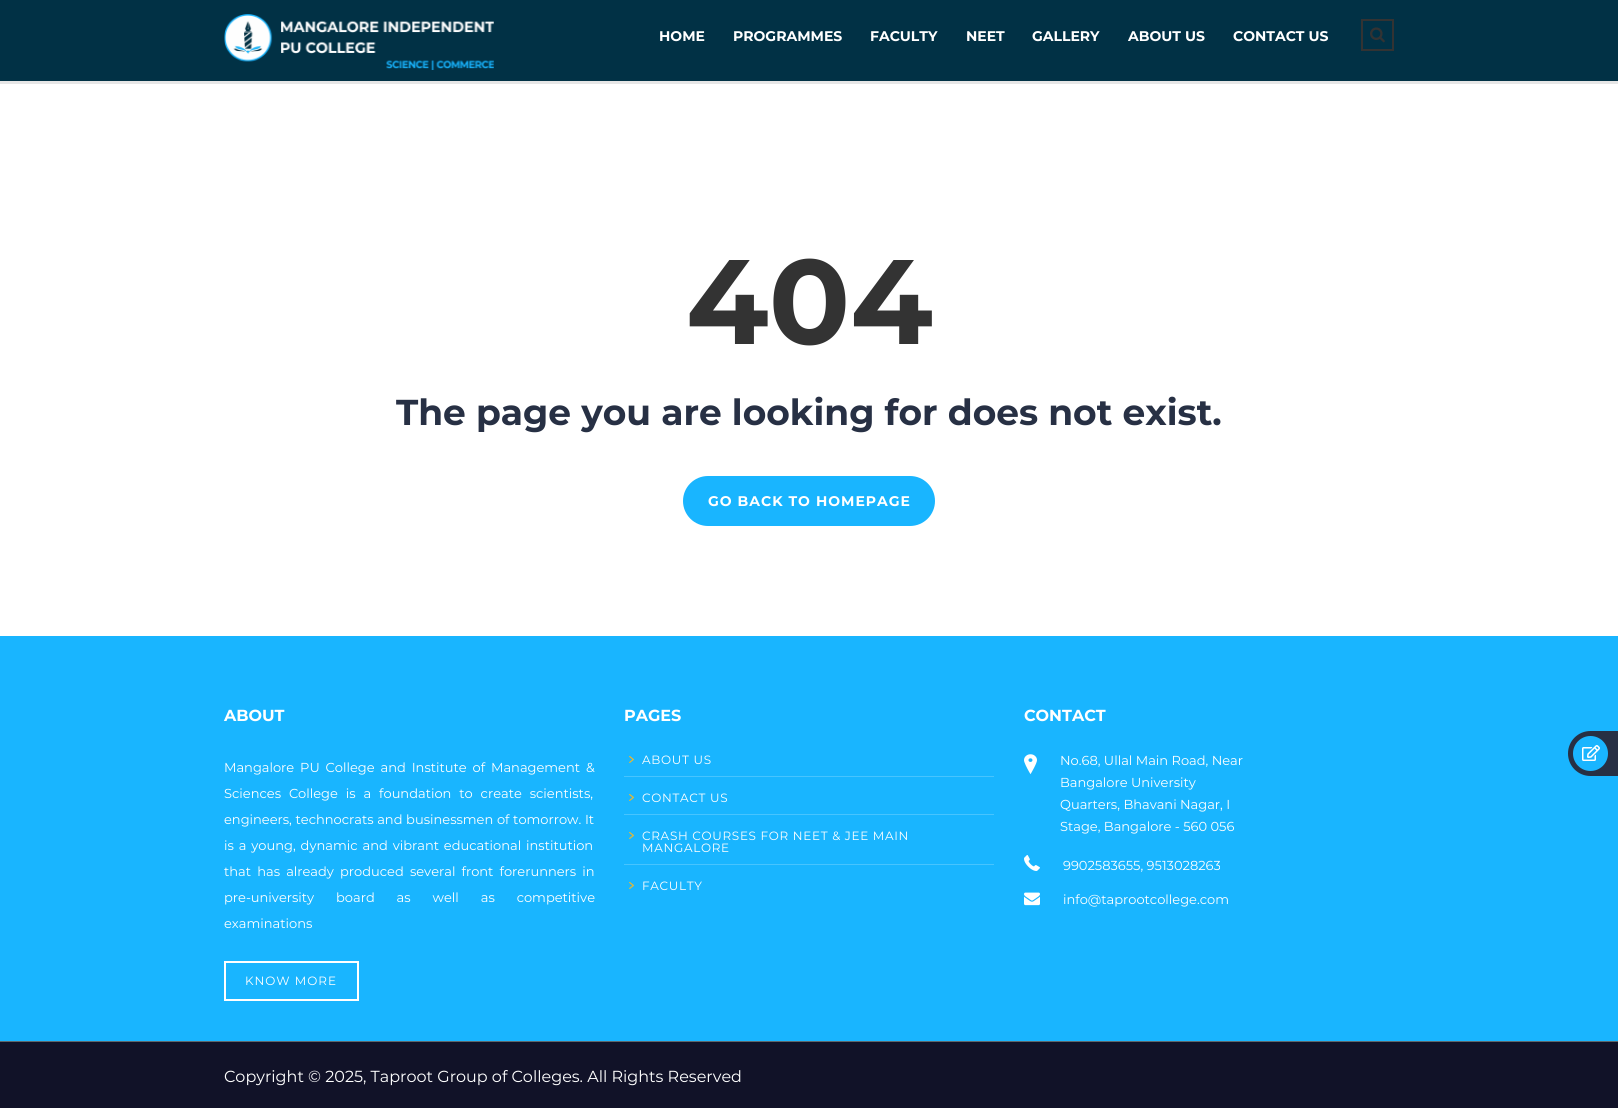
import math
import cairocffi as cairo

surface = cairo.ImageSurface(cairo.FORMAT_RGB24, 1618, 1108)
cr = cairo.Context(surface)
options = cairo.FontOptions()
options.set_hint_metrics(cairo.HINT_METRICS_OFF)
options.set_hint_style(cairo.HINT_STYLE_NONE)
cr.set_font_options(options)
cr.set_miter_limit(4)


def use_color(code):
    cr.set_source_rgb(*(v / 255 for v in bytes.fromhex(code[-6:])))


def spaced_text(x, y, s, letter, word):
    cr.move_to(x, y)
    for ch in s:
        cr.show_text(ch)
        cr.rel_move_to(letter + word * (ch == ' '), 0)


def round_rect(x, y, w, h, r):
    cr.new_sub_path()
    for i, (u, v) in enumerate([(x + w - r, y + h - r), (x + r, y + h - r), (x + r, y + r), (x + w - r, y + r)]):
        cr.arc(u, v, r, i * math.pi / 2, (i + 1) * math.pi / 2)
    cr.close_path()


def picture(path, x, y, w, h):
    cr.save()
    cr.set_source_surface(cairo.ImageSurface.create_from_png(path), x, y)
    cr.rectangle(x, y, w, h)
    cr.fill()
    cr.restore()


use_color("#ffffff")
cr.paint()
use_color("#013145")
cr.rectangle(0, 0, 1618, 81)
cr.fill()
picture("img1.png", 224, 14, 270, 56)
cr.select_font_face("Montserrat", cairo.FONT_SLANT_NORMAL, cairo.FONT_WEIGHT_BOLD)
cr.set_font_size(14)
use_color("#ffffff")
cr.move_to(659, 41)
cr.show_text("HOME")
cr.move_to(733, 41)
cr.show_text("PROGRAMMES")
cr.move_to(870, 41)
cr.show_text("FACULTY")
cr.move_to(966, 41)
cr.show_text("NEET")
cr.move_to(1032, 41)
cr.show_text("GALLERY")
cr.move_to(1128, 41)
cr.show_text("ABOUT US")
cr.move_to(1233, 41)
cr.show_text("CONTACT US")
cr.rectangle(1362, 20, 31, 30)
use_color("#333333")
cr.stroke()
picture("img2.png", 1370, 27, 15, 16)
use_color("#e6e6e6")
cr.rectangle(0, 81, 1618, 3)
cr.fill()
cr.set_font_size(120)
use_color("#333333")
cr.move_to(686, 344)
cr.show_text("404")
cr.set_font_size(36)
use_color("#273044")
cr.move_to(396, 425)
cr.show_text("The page you are looking for does not exist.")
use_color("#19b5ff")
round_rect(683, 476, 252, 50, 25)
cr.fill()
cr.set_font_size(14)
use_color("#ffffff")
spaced_text(708, 506, "GO BACK TO HOMEPAGE", 1, 0)
use_color("#19b5ff")
cr.rectangle(0, 636, 1618, 405)
cr.fill()
cr.set_font_size(16)
use_color("#ffffff")
cr.move_to(224, 721)
cr.show_text("ABOUT")
cr.select_font_face("Montserrat")
cr.set_font_size(13)
spaced_text(224, 772, "Mangalore PU College and Institute of Management &", 0, 2.5)
spaced_text(224, 798, "Sciences College is a foundation to create scientists,", 0, 4.5)
spaced_text(224, 824, "engineers, technocrats and businessmen of tomorrow. It", 0, 0.25)
spaced_text(224, 850, "is a young, dynamic and vibrant educational institution", 0, 1.5)
spaced_text(224, 876, "that has already produced several front forerunners in", 0, 2.75)
spaced_text(224, 902, "pre-university board as well as competitive", 0, 18.5)
cr.move_to(224, 928)
cr.show_text("examinations")
cr.rectangle(225, 962, 133, 38)
cr.stroke()
cr.set_font_size(12)
spaced_text(245, 985, "KNOW MORE", 1, 0)
cr.select_font_face("Montserrat", cairo.FONT_SLANT_NORMAL, cairo.FONT_WEIGHT_BOLD)
cr.set_font_size(16)
cr.move_to(624, 721)
cr.show_text("PAGES")
use_color("#47c4ff")
cr.rectangle(624, 776, 370, 1)
cr.fill()
picture("img3.png", 629, 756, 5, 7)
cr.select_font_face("Montserrat")
cr.set_font_size(12)
use_color("#ffffff")
spaced_text(642, 764, "ABOUT US", 0.7, 0)
use_color("#47c4ff")
cr.rectangle(624, 814, 370, 1)
cr.fill()
picture("img3.png", 629, 794, 5, 7)
use_color("#ffffff")
spaced_text(642, 802, "CONTACT US", 0.7, 0)
use_color("#47c4ff")
cr.rectangle(624, 864, 370, 1)
cr.fill()
picture("img3.png", 629, 832, 5, 7)
use_color("#ffffff")
spaced_text(642, 840, "CRASH COURSES FOR NEET & JEE MAIN", 0.7, 0)
spaced_text(642, 852, "MANGALORE", 0.7, 0)
picture("img3.png", 629, 882, 5, 7)
spaced_text(642, 890, "FACULTY", 0.7, 0)
cr.select_font_face("Montserrat", cairo.FONT_SLANT_NORMAL, cairo.FONT_WEIGHT_BOLD)
cr.set_font_size(16)
cr.move_to(1024, 721)
cr.show_text("CONTACT")
picture("img4.png", 1024, 754, 13, 21)
cr.select_font_face("Montserrat")
cr.set_font_size(13)
cr.move_to(1060, 765)
cr.show_text("No.68, Ullal Main Road, Near")
cr.move_to(1060, 787)
cr.show_text("Bangalore University")
cr.move_to(1060, 809)
cr.show_text("Quarters, Bhavani Nagar, I")
cr.move_to(1060, 831)
cr.show_text("Stage, Bangalore - 560 056")
picture("img5.png", 1024, 855, 16, 16)
cr.move_to(1063, 870)
cr.show_text("9902583655, 9513028263")
picture("img6.png", 1024, 892, 16, 14)
cr.move_to(1063, 904)
cr.show_text("info@taprootcollege.com")
use_color("#111228")
cr.rectangle(0, 1042, 1618, 66)
cr.fill()
use_color("#5e676b")
cr.rectangle(0, 1041, 1618, 1)
cr.fill()
cr.set_font_size(16)
use_color("#ffffff")
cr.move_to(224, 1082)
cr.show_text("Copyright © 2025, Taproot Group of Colleges. All Rights Reserved")
use_color("#273044")
cr.new_path()
cr.move_to(1590.5, 731)
cr.line_to(1618, 731)
cr.line_to(1618, 776)
cr.line_to(1590.5, 776)
cr.curve_to(1578, 776, 1568, 766, 1568, 753.5)
cr.curve_to(1568, 741, 1578, 731, 1590.5, 731)
cr.close_path()
cr.fill()
use_color("#19b5ff")
cr.arc(1590.5, 753.5, 17.5, 0, 2 * math.pi)
cr.fill()
picture("img7.png", 1582, 745, 18, 16)
surface.write_to_png("result.png")
